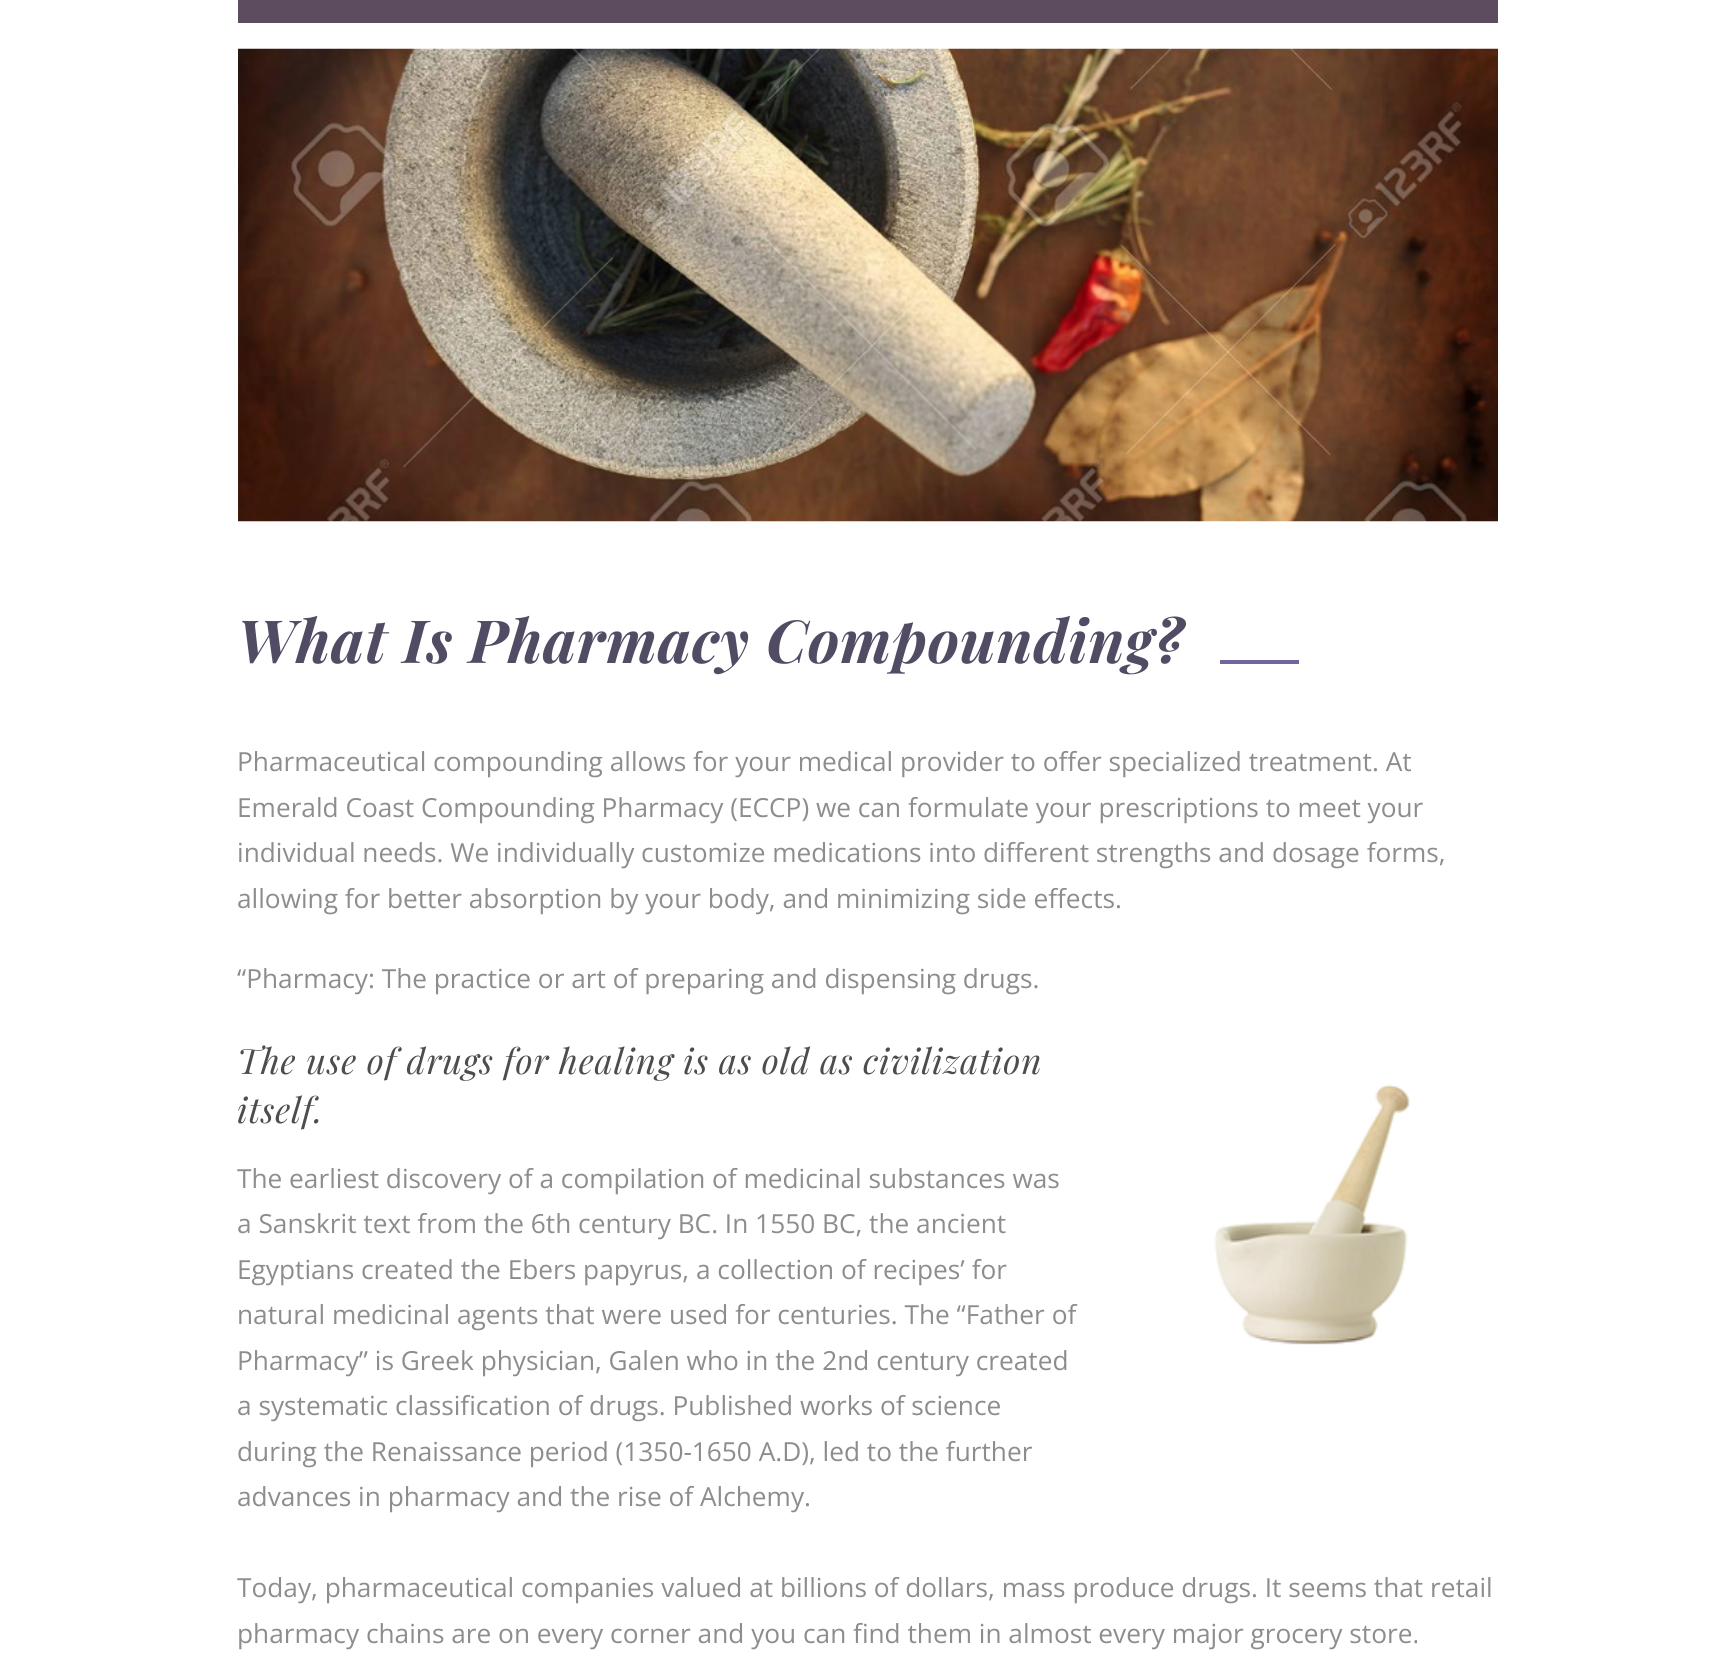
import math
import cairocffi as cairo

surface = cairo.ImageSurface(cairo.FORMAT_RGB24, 1733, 1667)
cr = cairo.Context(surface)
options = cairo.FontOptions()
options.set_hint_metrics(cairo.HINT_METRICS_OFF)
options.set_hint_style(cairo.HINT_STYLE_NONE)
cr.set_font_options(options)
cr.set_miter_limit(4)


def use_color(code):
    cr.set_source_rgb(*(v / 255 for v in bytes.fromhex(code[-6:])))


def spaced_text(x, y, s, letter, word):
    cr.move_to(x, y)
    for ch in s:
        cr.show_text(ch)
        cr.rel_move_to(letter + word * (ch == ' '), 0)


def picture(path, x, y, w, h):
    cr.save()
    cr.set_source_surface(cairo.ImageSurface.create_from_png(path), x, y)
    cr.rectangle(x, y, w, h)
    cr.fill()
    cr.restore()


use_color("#ffffff")
cr.paint()
use_color("#5d4c5f")
cr.rectangle(238, 0, 1260, 23)
cr.fill()
picture("img1.png", 238, 48, 1260, 474)
cr.select_font_face("Playfair Display", cairo.FONT_SLANT_ITALIC, cairo.FONT_WEIGHT_BOLD)
cr.set_font_size(59.5)
use_color("#524b64")
spaced_text(237, 663, "What Is Pharmacy Compounding?", 0.88, 0)
use_color("#73649c")
cr.rectangle(1220, 660, 79, 4)
cr.fill()
cr.select_font_face("Open Sans")
cr.set_font_size(26.25)
use_color("#8e8d8d")
cr.move_to(237, 771)
cr.show_text("Pharmaceutical compounding allows for your medical provider to offer specialized treatment. At")
cr.move_to(237, 817)
cr.show_text("Emerald Coast Compounding Pharmacy (ECCP) we can formulate your prescriptions to meet your")
cr.move_to(237, 862)
cr.show_text("individual needs. We individually customize medications into different strengths and dosage forms,")
cr.move_to(237, 908)
cr.show_text("allowing for better absorption by your body, and minimizing side effects.")
cr.move_to(237, 988)
cr.show_text("“Pharmacy: The practice or art of preparing and dispensing drugs.")
cr.select_font_face("Playfair Display", cairo.FONT_SLANT_ITALIC)
cr.set_font_size(35)
use_color("#4d4d4d")
spaced_text(237, 1074, "The use of drugs for healing is as old as civilization", 0.88, 0)
spaced_text(237, 1123, "itself.", 0.88, 0)
picture("img2.png", 1214, 1084, 196, 261)
cr.select_font_face("Open Sans")
cr.set_font_size(26.25)
use_color("#8e8d8d")
cr.move_to(237, 1188)
cr.show_text("The earliest discovery of a compilation of medicinal substances was")
cr.move_to(237, 1233)
cr.show_text("a Sanskrit text from the 6th century BC. In 1550 BC, the ancient")
cr.move_to(237, 1279)
cr.show_text("Egyptians created the Ebers papyrus, a collection of recipes’ for")
cr.move_to(237, 1324)
cr.show_text("natural medicinal agents that were used for centuries. The “Father of")
cr.move_to(237, 1370)
cr.show_text("Pharmacy” is Greek physician, Galen who in the 2nd century created")
cr.move_to(237, 1415)
cr.show_text("a systematic classification of drugs. Published works of science")
cr.move_to(237, 1461)
cr.show_text("during the Renaissance period (1350-1650 A.D), led to the further")
cr.move_to(237, 1506)
cr.show_text("advances in pharmacy and the rise of Alchemy.")
cr.move_to(237, 1597)
cr.show_text("Today, pharmaceutical companies valued at billions of dollars, mass produce drugs. It seems that retail")
cr.move_to(237, 1643)
cr.show_text("pharmacy chains are on every corner and you can find them in almost every major grocery store.")
surface.write_to_png("result.png")
